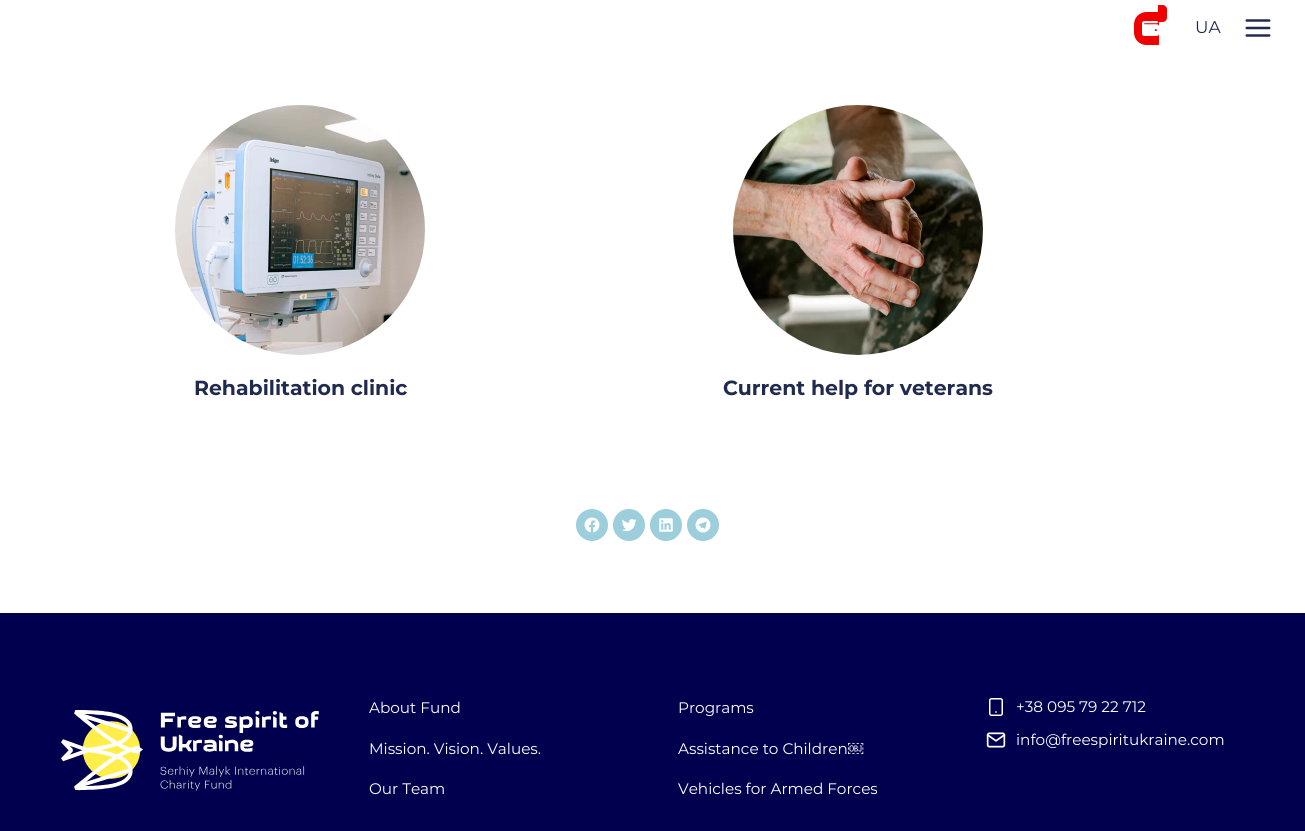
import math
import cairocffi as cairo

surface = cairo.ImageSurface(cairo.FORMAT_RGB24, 1305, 831)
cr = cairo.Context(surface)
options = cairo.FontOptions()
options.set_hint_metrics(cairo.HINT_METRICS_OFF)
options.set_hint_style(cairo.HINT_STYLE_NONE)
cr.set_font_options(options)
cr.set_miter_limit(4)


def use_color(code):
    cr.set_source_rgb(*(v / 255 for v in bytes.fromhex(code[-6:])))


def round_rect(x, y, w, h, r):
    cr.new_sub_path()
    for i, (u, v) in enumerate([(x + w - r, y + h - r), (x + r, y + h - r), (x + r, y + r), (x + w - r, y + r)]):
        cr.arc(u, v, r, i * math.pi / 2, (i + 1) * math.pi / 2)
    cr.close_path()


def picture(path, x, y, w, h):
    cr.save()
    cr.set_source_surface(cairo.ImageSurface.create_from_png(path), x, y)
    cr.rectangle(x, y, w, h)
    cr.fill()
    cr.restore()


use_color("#ffffff")
cr.paint()
use_color("#f10000")
cr.new_path()
cr.move_to(1146.5, 12)
cr.line_to(1159, 12)
cr.line_to(1159, 45)
cr.line_to(1146.5, 45)
cr.curve_to(1139.5, 45, 1134, 39.5, 1134, 32.5)
cr.line_to(1134, 24.5)
cr.curve_to(1134, 17.5, 1139.5, 12, 1146.5, 12)
cr.close_path()
cr.fill()
cr.new_path()
cr.move_to(1158, 5)
cr.line_to(1162.5, 5)
cr.curve_to(1165, 5, 1167, 7, 1167, 9.5)
cr.line_to(1167, 17.5)
cr.curve_to(1167, 20, 1165, 22, 1162.5, 22)
cr.line_to(1158, 22)
cr.close_path()
cr.fill()
picture("img1.png", 1142, 21, 17, 15)
cr.select_font_face("Montserrat")
cr.set_font_size(17)
use_color("#202a4f")
cr.move_to(1195, 33)
cr.show_text("UA")
picture("img2.png", 1245, 19, 26, 18)
picture("img3.png", 175, 105, 250, 250)
cr.select_font_face("Montserrat", cairo.FONT_SLANT_NORMAL, cairo.FONT_WEIGHT_BOLD)
cr.set_font_size(20.4)
cr.move_to(194, 395)
cr.show_text("Rehabilitation clinic")
picture("img4.png", 733, 105, 250, 250)
cr.move_to(723, 395)
cr.show_text("Current help for veterans")
use_color("#9ccedb")
cr.new_path()
cr.arc(592, 525, 16, 0, 2 * math.pi)
cr.fill()
picture("img5.png", 584, 517, 16, 16)
cr.arc(629, 525, 16, 0, 2 * math.pi)
cr.fill()
picture("img6.png", 622, 519, 15, 13)
cr.arc(666, 525, 16, 0, 2 * math.pi)
cr.fill()
picture("img7.png", 659, 518, 14, 14)
cr.arc(703, 525, 16, 0, 2 * math.pi)
cr.fill()
picture("img8.png", 695, 517, 16, 16)
use_color("#00004f")
cr.rectangle(0, 613, 1305, 218)
cr.fill()
picture("img9.png", 61, 710, 258, 81)
cr.select_font_face("Montserrat")
cr.set_font_size(15.25)
use_color("#ffffff")
cr.move_to(369, 713)
cr.show_text("About Fund")
cr.move_to(369, 754)
cr.show_text("Mission. Vision. Values.")
cr.move_to(369, 794)
cr.show_text("Our Team")
cr.move_to(678, 713)
cr.show_text("Programs")
cr.move_to(678, 754)
cr.show_text("Assistance to Children")
cr.select_font_face("Liberation Sans")
cr.move_to(848, 754)
cr.show_text("￼")
cr.select_font_face("Montserrat")
cr.move_to(678, 794)
cr.show_text("Vehicles for Armed Forces")
round_rect(989.75, 698.75, 12.5, 16.5, 1.75)
cr.set_line_width(1.5)
cr.stroke()
cr.new_path()
cr.move_to(996, 712)
cr.line_to(996, 712)
cr.set_line_width(1.7)
cr.set_line_cap(cairo.LINE_CAP_ROUND)
cr.set_line_join(cairo.LINE_JOIN_ROUND)
cr.stroke()
cr.move_to(1016, 712)
cr.show_text("+38 095 79 22 712")
picture("img10.png", 986, 732, 20, 16)
cr.move_to(1016, 745)
cr.show_text("info@freespiritukraine.com")
surface.write_to_png("result.png")
